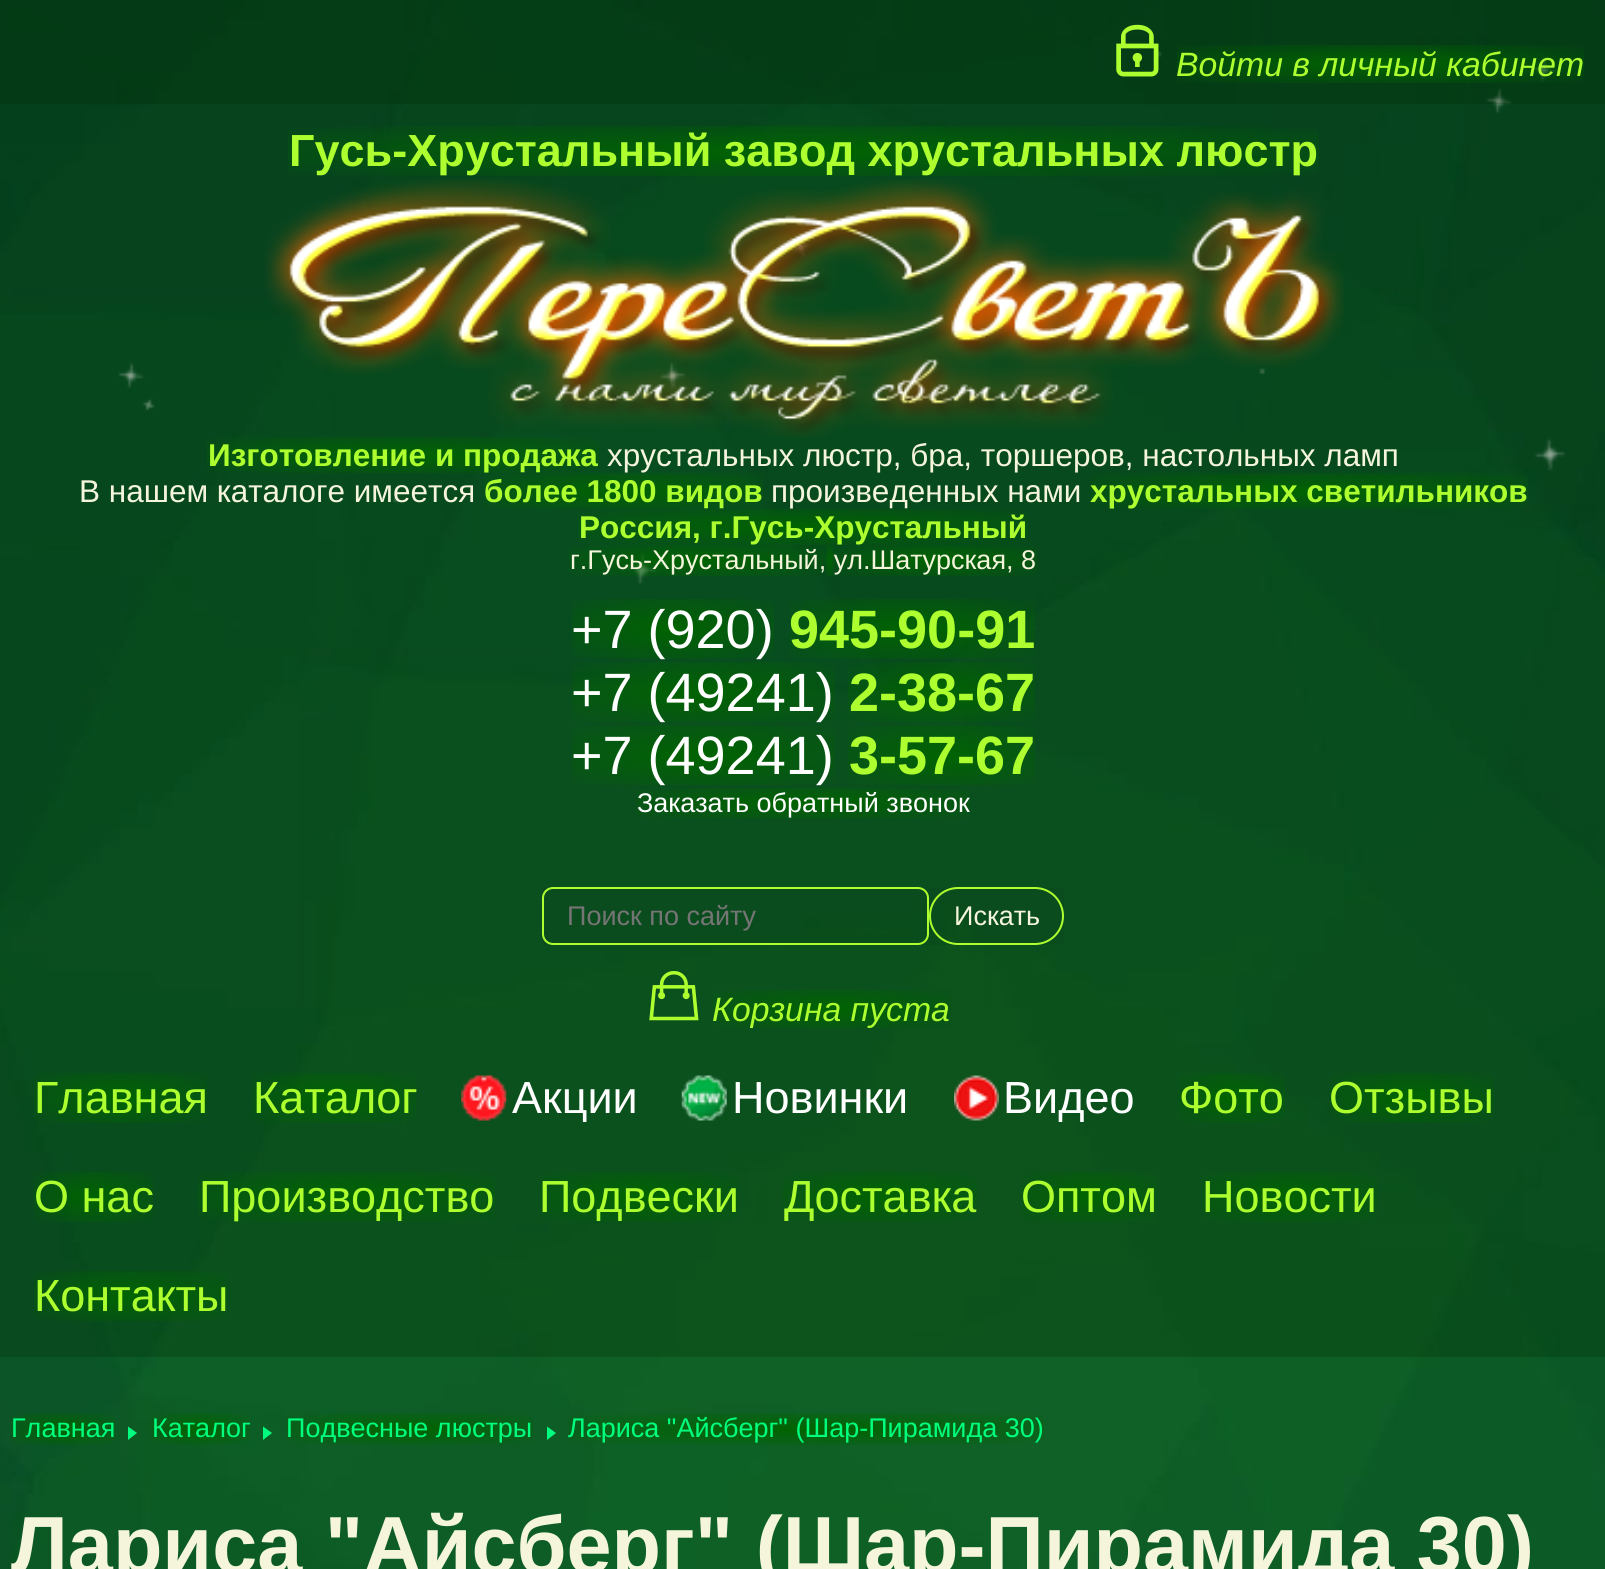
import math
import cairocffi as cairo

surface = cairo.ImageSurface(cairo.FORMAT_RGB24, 1605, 1569)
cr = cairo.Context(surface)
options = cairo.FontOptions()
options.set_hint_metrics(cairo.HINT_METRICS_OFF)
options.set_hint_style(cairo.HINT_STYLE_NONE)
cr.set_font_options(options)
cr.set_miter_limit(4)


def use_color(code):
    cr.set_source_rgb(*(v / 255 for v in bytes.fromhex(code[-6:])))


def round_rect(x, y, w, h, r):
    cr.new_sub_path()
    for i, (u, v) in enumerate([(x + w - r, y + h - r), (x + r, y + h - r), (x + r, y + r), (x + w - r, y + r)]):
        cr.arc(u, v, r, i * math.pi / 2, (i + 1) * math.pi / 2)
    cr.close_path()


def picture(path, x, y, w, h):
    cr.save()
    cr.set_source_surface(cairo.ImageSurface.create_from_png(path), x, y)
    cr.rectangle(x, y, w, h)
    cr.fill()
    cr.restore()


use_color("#ffffff")
cr.paint()
picture("img1.png", 0, 0, 1605, 1569)
picture("img8.png", 118, 51, 1448, 533)
cr.set_source_rgba(0, 0.157, 0, 0.25)
cr.rectangle(0, 0, 1605, 1357)
cr.fill()
cr.rectangle(0, 0, 1605, 104)
cr.fill()
picture("img2.png", 1116, 24, 43, 53)
gradient = cairo.RadialGradient(0, 0, 0, 0, 0, 1)
gradient.set_matrix(cairo.Matrix(1 / 288, 0, 0, 1 / 27, -1 * 1380 / 288, -1 * 64 / 27))
gradient.add_color_stop_rgba(0, 0, 0.392, 0, 1)
gradient.add_color_stop_rgba(1, 0, 0.392, 0, 0)
cr.set_source(gradient)
cr.rectangle(1177, 45, 407, 38)
cr.fill()
cr.select_font_face("Liberation Sans", cairo.FONT_SLANT_ITALIC)
cr.set_font_size(33.75)
use_color("#adff2f")
cr.move_to(1176, 76)
cr.show_text("Войти в личный кабинет")
gradient = cairo.RadialGradient(0, 0, 0, 0, 0, 1)
gradient.set_matrix(cairo.Matrix(1 / 729, 0, 0, 1 / 35, -1 * 803 / 729, -1 * 151 / 35))
gradient.add_color_stop_rgba(0, 0, 0.392, 0, 1)
gradient.add_color_stop_rgba(1, 0, 0.392, 0, 0)
cr.set_source(gradient)
cr.rectangle(288, 126, 1031, 50)
cr.fill()
cr.select_font_face("Liberation Sans", cairo.FONT_SLANT_NORMAL, cairo.FONT_WEIGHT_BOLD)
cr.set_font_size(45)
use_color("#adff2f")
cr.move_to(289, 166)
cr.show_text("Гусь-Хрустальный завод хрустальных люстр")
picture("img3.png", 265, 179, 1079, 258)
gradient = cairo.RadialGradient(0, 0, 0, 0, 0, 1)
gradient.set_matrix(cairo.Matrix(1 / 277, 0, 0, 1 / 25, -1 * 403 / 277, -1 * 455 / 25))
gradient.add_color_stop_rgba(0, 0, 0.392, 0, 1)
gradient.add_color_stop_rgba(1, 0, 0.392, 0, 0)
cr.set_source(gradient)
cr.rectangle(207, 437, 392, 36)
cr.fill()
cr.set_font_size(31.5)
use_color("#adff2f")
cr.move_to(208, 466)
cr.show_text("Изготовление и продажа")
cr.select_font_face("Liberation Sans")
use_color("#f5f5dc")
cr.move_to(607, 466)
cr.show_text("хрустальных люстр, бра, торшеров, настольных ламп")
cr.move_to(79, 502)
cr.show_text("В нашем каталоге имеется")
gradient = cairo.RadialGradient(0, 0, 0, 0, 0, 1)
gradient.set_matrix(cairo.Matrix(1 / 197, 0, 0, 1 / 25, -1 * 623 / 197, -1 * 491 / 25))
gradient.add_color_stop_rgba(0, 0, 0.392, 0, 1)
gradient.add_color_stop_rgba(1, 0, 0.392, 0, 0)
cr.set_source(gradient)
cr.rectangle(484, 473, 279, 36)
cr.fill()
cr.select_font_face("Liberation Sans", cairo.FONT_SLANT_NORMAL, cairo.FONT_WEIGHT_BOLD)
use_color("#adff2f")
cr.move_to(484, 502)
cr.show_text("более 1800 видов")
cr.select_font_face("Liberation Sans")
use_color("#f5f5dc")
cr.move_to(771, 502)
cr.show_text("произведенных нами")
gradient = cairo.RadialGradient(0, 0, 0, 0, 0, 1)
gradient.set_matrix(cairo.Matrix(1 / 309, 0, 0, 1 / 25, -1 * 1310 / 309, -1 * 491 / 25))
gradient.add_color_stop_rgba(0, 0, 0.392, 0, 1)
gradient.add_color_stop_rgba(1, 0, 0.392, 0, 0)
cr.set_source(gradient)
cr.rectangle(1091, 473, 437, 36)
cr.fill()
cr.select_font_face("Liberation Sans", cairo.FONT_SLANT_NORMAL, cairo.FONT_WEIGHT_BOLD)
use_color("#adff2f")
cr.move_to(1090, 502)
cr.show_text("хрустальных светильников")
gradient = cairo.RadialGradient(0, 0, 0, 0, 0, 1)
gradient.set_matrix(cairo.Matrix(1 / 318, 0, 0, 1 / 25, -1 * 803 / 318, -1 * 527 / 25))
gradient.add_color_stop_rgba(0, 0, 0.392, 0, 1)
gradient.add_color_stop_rgba(1, 0, 0.392, 0, 0)
cr.set_source(gradient)
cr.rectangle(578, 509, 450, 36)
cr.fill()
use_color("#adff2f")
cr.move_to(579, 538)
cr.show_text("Россия, г.Гусь-Хрустальный")
gradient = cairo.RadialGradient(0, 0, 0, 0, 0, 1)
gradient.set_matrix(cairo.Matrix(1 / 181, 0, 0, 1 / 22, -1 * 698 / 181, -1 * 560 / 22))
gradient.add_color_stop_rgba(0, 0, 0.392, 0, 1)
gradient.add_color_stop_rgba(1, 0, 0.392, 0, 0)
cr.set_source(gradient)
cr.rectangle(569, 545, 257, 31)
cr.fill()
gradient = cairo.RadialGradient(0, 0, 0, 0, 0, 1)
gradient.set_matrix(cairo.Matrix(1 / 6.4, 0, 0, 1 / 22, -1 * 830 / 6.4, -1 * 560 / 22))
gradient.add_color_stop_rgba(0, 0, 0.392, 0, 1)
gradient.add_color_stop_rgba(1, 0.027, 0.29, 0.114, 1)
cr.set_source(gradient)
cr.rectangle(826, 545, 9, 31)
cr.fill()
gradient = cairo.RadialGradient(0, 0, 0, 0, 0, 1)
gradient.set_matrix(cairo.Matrix(1 / 143, 0, 0, 1 / 22, -1 * 936 / 143, -1 * 560 / 22))
gradient.add_color_stop_rgba(0, 0, 0.392, 0, 1)
gradient.add_color_stop_rgba(1, 0.027, 0.29, 0.114, 1)
cr.set_source(gradient)
cr.rectangle(835, 545, 202, 31)
cr.fill()
cr.select_font_face("Liberation Sans")
cr.set_font_size(27)
use_color("#f5f5dc")
cr.move_to(570, 569)
cr.show_text("г.Гусь-Хрустальный, ул.Шатурская, 8")
gradient = cairo.RadialGradient(0, 0, 0, 0, 0, 1)
gradient.set_matrix(cairo.Matrix(1 / 143, 0, 0, 1 / 43, -1 * 673 / 143, -1 * 629 / 43))
gradient.add_color_stop_rgba(0, 0, 0.392, 0, 1)
gradient.add_color_stop_rgba(1, 0.031, 0.302, 0.122, 1)
cr.set_source(gradient)
cr.rectangle(572, 599, 202, 60)
cr.fill()
cr.set_font_size(54)
use_color("#ffffff")
cr.move_to(571, 648)
cr.show_text("+7 (920)")
gradient = cairo.RadialGradient(0, 0, 0, 0, 0, 1)
gradient.set_matrix(cairo.Matrix(1 / 173, 0, 0, 1 / 43, -1 * 912 / 173, -1 * 629 / 43))
gradient.add_color_stop_rgba(0, 0, 0.392, 0, 1)
gradient.add_color_stop_rgba(1, 0, 0.392, 0, 0)
cr.set_source(gradient)
cr.rectangle(790, 599, 245, 60)
cr.fill()
cr.select_font_face("Liberation Sans", cairo.FONT_SLANT_NORMAL, cairo.FONT_WEIGHT_BOLD)
use_color("#adff2f")
cr.move_to(789, 648)
cr.show_text("945-90-91")
gradient = cairo.RadialGradient(0, 0, 0, 0, 0, 1)
gradient.set_matrix(cairo.Matrix(1 / 186, 0, 0, 1 / 43, -1 * 703 / 186, -1 * 692 / 43))
gradient.add_color_stop_rgba(0, 0, 0.392, 0, 1)
gradient.add_color_stop_rgba(1, 0, 0.392, 0, 0)
cr.set_source(gradient)
cr.rectangle(572, 662, 263, 60)
cr.fill()
cr.select_font_face("Liberation Sans")
use_color("#ffffff")
cr.move_to(571, 711)
cr.show_text("+7 (49241)")
gradient = cairo.RadialGradient(0, 0, 0, 0, 0, 1)
gradient.set_matrix(cairo.Matrix(1 / 132, 0, 0, 1 / 43, -1 * 942 / 132, -1 * 692 / 43))
gradient.add_color_stop_rgba(0, 0, 0.392, 0, 1)
gradient.add_color_stop_rgba(1, 0, 0.392, 0, 0)
cr.set_source(gradient)
cr.rectangle(848, 662, 187, 60)
cr.fill()
cr.select_font_face("Liberation Sans", cairo.FONT_SLANT_NORMAL, cairo.FONT_WEIGHT_BOLD)
use_color("#adff2f")
cr.move_to(849, 711)
cr.show_text("2-38-67")
gradient = cairo.RadialGradient(0, 0, 0, 0, 0, 1)
gradient.set_matrix(cairo.Matrix(1 / 186, 0, 0, 1 / 43, -1 * 703 / 186, -1 * 755 / 43))
gradient.add_color_stop_rgba(0, 0, 0.392, 0, 1)
gradient.add_color_stop_rgba(1, 0.039, 0.314, 0.118, 1)
cr.set_source(gradient)
cr.rectangle(572, 725, 263, 60)
cr.fill()
cr.select_font_face("Liberation Sans")
use_color("#ffffff")
cr.move_to(571, 774)
cr.show_text("+7 (49241)")
gradient = cairo.RadialGradient(0, 0, 0, 0, 0, 1)
gradient.set_matrix(cairo.Matrix(1 / 132, 0, 0, 1 / 43, -1 * 942 / 132, -1 * 755 / 43))
gradient.add_color_stop_rgba(0, 0, 0.392, 0, 1)
gradient.add_color_stop_rgba(1, 0, 0.392, 0, 0)
cr.set_source(gradient)
cr.rectangle(848, 725, 187, 60)
cr.fill()
cr.select_font_face("Liberation Sans", cairo.FONT_SLANT_NORMAL, cairo.FONT_WEIGHT_BOLD)
use_color("#adff2f")
cr.move_to(849, 774)
cr.show_text("3-57-67")
gradient = cairo.RadialGradient(0, 0, 0, 0, 0, 1)
gradient.set_matrix(cairo.Matrix(1 / 235, 0, 0, 1 / 22, -1 * 803 / 235, -1 * 803 / 22))
gradient.add_color_stop_rgba(0, 0, 0.392, 0, 1)
gradient.add_color_stop_rgba(1, 0.039, 0.314, 0.118, 1)
cr.set_source(gradient)
cr.rectangle(637, 788, 333, 31)
cr.fill()
cr.select_font_face("Liberation Sans")
cr.set_font_size(27)
use_color("#ffffff")
cr.move_to(637, 812)
cr.show_text("Заказать обратный звонок")
cr.set_source_rgba(0, 0, 0, 0.05)
cr.rectangle(542, 887, 387, 58)
cr.fill()
round_rect(543, 888, 385, 56, 10)
use_color("#adff2f")
cr.stroke()
use_color("#757575")
cr.move_to(567, 925)
cr.show_text("Поиск по сайту")
cr.set_source_rgba(0, 0, 0, 0.05)
cr.rectangle(929, 887, 135, 58)
cr.fill()
round_rect(930, 888, 133, 56, 28)
use_color("#adff2f")
cr.stroke()
use_color("#f5f5dc")
cr.move_to(954, 925)
cr.show_text("Искать")
picture("img4.png", 649, 971, 50, 50)
gradient = cairo.RadialGradient(0, 0, 0, 0, 0, 1)
gradient.set_matrix(cairo.Matrix(1 / 167, 0, 0, 1 / 27, -1 * 831 / 167, -1 * 1009 / 27))
gradient.add_color_stop_rgba(0, 0, 0.392, 0, 1)
gradient.add_color_stop_rgba(1, 0.043, 0.318, 0.114, 1)
cr.set_source(gradient)
cr.rectangle(713, 990, 237, 38)
cr.fill()
cr.select_font_face("Liberation Sans", cairo.FONT_SLANT_ITALIC)
cr.set_font_size(33.75)
use_color("#adff2f")
cr.move_to(712, 1021)
cr.show_text("Корзина пуста")
gradient = cairo.RadialGradient(0, 0, 0, 0, 0, 1)
gradient.set_matrix(cairo.Matrix(1 / 123, 0, 0, 1 / 35, -1 * 120 / 123, -1 * 1098 / 35))
gradient.add_color_stop_rgba(0, 0, 0.392, 0, 1)
gradient.add_color_stop_rgba(1, 0, 0.392, 0, 0)
cr.set_source(gradient)
cr.rectangle(34, 1073, 173, 50)
cr.fill()
cr.select_font_face("Liberation Sans")
cr.set_font_size(45)
use_color("#adff2f")
cr.move_to(34, 1113)
cr.show_text("Главная")
gradient = cairo.RadialGradient(0, 0, 0, 0, 0, 1)
gradient.set_matrix(cairo.Matrix(1 / 116, 0, 0, 1 / 35, -1 * 334 / 116, -1 * 1098 / 35))
gradient.add_color_stop_rgba(0, 0, 0.392, 0, 1)
gradient.add_color_stop_rgba(1, 0, 0.392, 0, 0)
cr.set_source(gradient)
cr.rectangle(252, 1073, 164, 50)
cr.fill()
use_color("#adff2f")
cr.move_to(253, 1113)
cr.show_text("Каталог")
picture("img5.png", 461, 1075, 46, 46)
use_color("#ffffff")
cr.move_to(512, 1113)
cr.show_text("Акции")
picture("img6.png", 681, 1075, 46, 46)
cr.move_to(732, 1113)
cr.show_text("Новинки")
picture("img7.png", 954, 1075, 45, 46)
cr.move_to(1003, 1113)
cr.show_text("Видео")
gradient = cairo.RadialGradient(0, 0, 0, 0, 0, 1)
gradient.set_matrix(cairo.Matrix(1 / 75, 0, 0, 1 / 35, -1 * 1232 / 75, -1 * 1098 / 35))
gradient.add_color_stop_rgba(0, 0, 0.392, 0, 1)
gradient.add_color_stop_rgba(1, 0, 0.392, 0, 0)
cr.set_source(gradient)
cr.rectangle(1179, 1073, 106, 50)
cr.fill()
use_color("#adff2f")
cr.move_to(1179, 1113)
cr.show_text("Фото")
gradient = cairo.RadialGradient(0, 0, 0, 0, 0, 1)
gradient.set_matrix(cairo.Matrix(1 / 116, 0, 0, 1 / 35, -1 * 1412 / 116, -1 * 1098 / 35))
gradient.add_color_stop_rgba(0, 0, 0.392, 0, 1)
gradient.add_color_stop_rgba(1, 0.039, 0.306, 0.114, 1)
cr.set_source(gradient)
cr.rectangle(1330, 1073, 164, 50)
cr.fill()
use_color("#adff2f")
cr.move_to(1329, 1113)
cr.show_text("Отзывы")
gradient = cairo.RadialGradient(0, 0, 0, 0, 0, 1)
gradient.set_matrix(cairo.Matrix(1 / 84, 0, 0, 1 / 35, -1 * 93 / 84, -1 * 1197 / 35))
gradient.add_color_stop_rgba(0, 0, 0.392, 0, 1)
gradient.add_color_stop_rgba(1, 0, 0.392, 0, 0)
cr.set_source(gradient)
cr.rectangle(34, 1172, 119, 50)
cr.fill()
use_color("#adff2f")
cr.move_to(34, 1212)
cr.show_text("О нас")
gradient = cairo.RadialGradient(0, 0, 0, 0, 0, 1)
gradient.set_matrix(cairo.Matrix(1 / 210, 0, 0, 1 / 35, -1 * 347 / 210, -1 * 1197 / 35))
gradient.add_color_stop_rgba(0, 0, 0.392, 0, 1)
gradient.add_color_stop_rgba(1, 0, 0.392, 0, 0)
cr.set_source(gradient)
cr.rectangle(198, 1172, 297, 50)
cr.fill()
use_color("#adff2f")
cr.move_to(199, 1212)
cr.show_text("Производство")
gradient = cairo.RadialGradient(0, 0, 0, 0, 0, 1)
gradient.set_matrix(cairo.Matrix(1 / 140, 0, 0, 1 / 35, -1 * 639 / 140, -1 * 1197 / 35))
gradient.add_color_stop_rgba(0, 0, 0.392, 0, 1)
gradient.add_color_stop_rgba(1, 0, 0.392, 0, 0)
cr.set_source(gradient)
cr.rectangle(540, 1172, 198, 50)
cr.fill()
use_color("#adff2f")
cr.move_to(539, 1212)
cr.show_text("Подвески")
gradient = cairo.RadialGradient(0, 0, 0, 0, 0, 1)
gradient.set_matrix(cairo.Matrix(1 / 137, 0, 0, 1 / 35, -1 * 880 / 137, -1 * 1197 / 35))
gradient.add_color_stop_rgba(0, 0, 0.392, 0, 1)
gradient.add_color_stop_rgba(1, 0.047, 0.325, 0.114, 1)
cr.set_source(gradient)
cr.rectangle(783, 1172, 194, 50)
cr.fill()
use_color("#adff2f")
cr.move_to(784, 1212)
cr.show_text("Доставка")
gradient = cairo.RadialGradient(0, 0, 0, 0, 0, 1)
gradient.set_matrix(cairo.Matrix(1 / 95, 0, 0, 1 / 35, -1 * 1089 / 95, -1 * 1197 / 35))
gradient.add_color_stop_rgba(0, 0, 0.392, 0, 1)
gradient.add_color_stop_rgba(1, 0.047, 0.322, 0.11, 1)
cr.set_source(gradient)
cr.rectangle(1022, 1172, 135, 50)
cr.fill()
use_color("#adff2f")
cr.move_to(1021, 1212)
cr.show_text("Оптом")
gradient = cairo.RadialGradient(0, 0, 0, 0, 0, 1)
gradient.set_matrix(cairo.Matrix(1 / 124, 0, 0, 1 / 35, -1 * 1289 / 124, -1 * 1197 / 35))
gradient.add_color_stop_rgba(0, 0, 0.392, 0, 1)
gradient.add_color_stop_rgba(1, 0.043, 0.318, 0.11, 1)
cr.set_source(gradient)
cr.rectangle(1202, 1172, 175, 50)
cr.fill()
use_color("#adff2f")
cr.move_to(1202, 1212)
cr.show_text("Новости")
gradient = cairo.RadialGradient(0, 0, 0, 0, 0, 1)
gradient.set_matrix(cairo.Matrix(1 / 137, 0, 0, 1 / 35, -1 * 131 / 137, -1 * 1296 / 35))
gradient.add_color_stop_rgba(0, 0, 0.392, 0, 1)
gradient.add_color_stop_rgba(1, 0, 0.392, 0, 0)
cr.set_source(gradient)
cr.rectangle(34, 1271, 193, 50)
cr.fill()
use_color("#adff2f")
cr.move_to(34, 1311)
cr.show_text("Контакты")
cr.set_font_size(27)
use_color("#00ff7f")
cr.move_to(11, 1437)
cr.show_text("Главная")
cr.new_path()
cr.move_to(128, 1440)
cr.line_to(128, 1426.5)
cr.line_to(137, 1433)
cr.close_path()
cr.fill()
cr.move_to(152, 1437)
cr.show_text("Каталог")
cr.new_path()
cr.move_to(263, 1440)
cr.line_to(263, 1426.5)
cr.line_to(272, 1433)
cr.close_path()
cr.fill()
cr.move_to(286, 1437)
cr.show_text("Подвесные люстры")
cr.new_path()
cr.move_to(547, 1440)
cr.line_to(547, 1426.5)
cr.line_to(556, 1433)
cr.close_path()
cr.fill()
cr.move_to(568, 1437)
cr.show_text("Лариса \"Айсберг\" (Шар-Пирамида 30)")
cr.select_font_face("Liberation Sans", cairo.FONT_SLANT_NORMAL, cairo.FONT_WEIGHT_BOLD)
cr.set_font_size(81)
use_color("#f5f5dc")
cr.move_to(11, 1573)
cr.show_text("Лариса \"Айсберг\" (Шар-Пирамида 30)")
surface.write_to_png("result.png")
